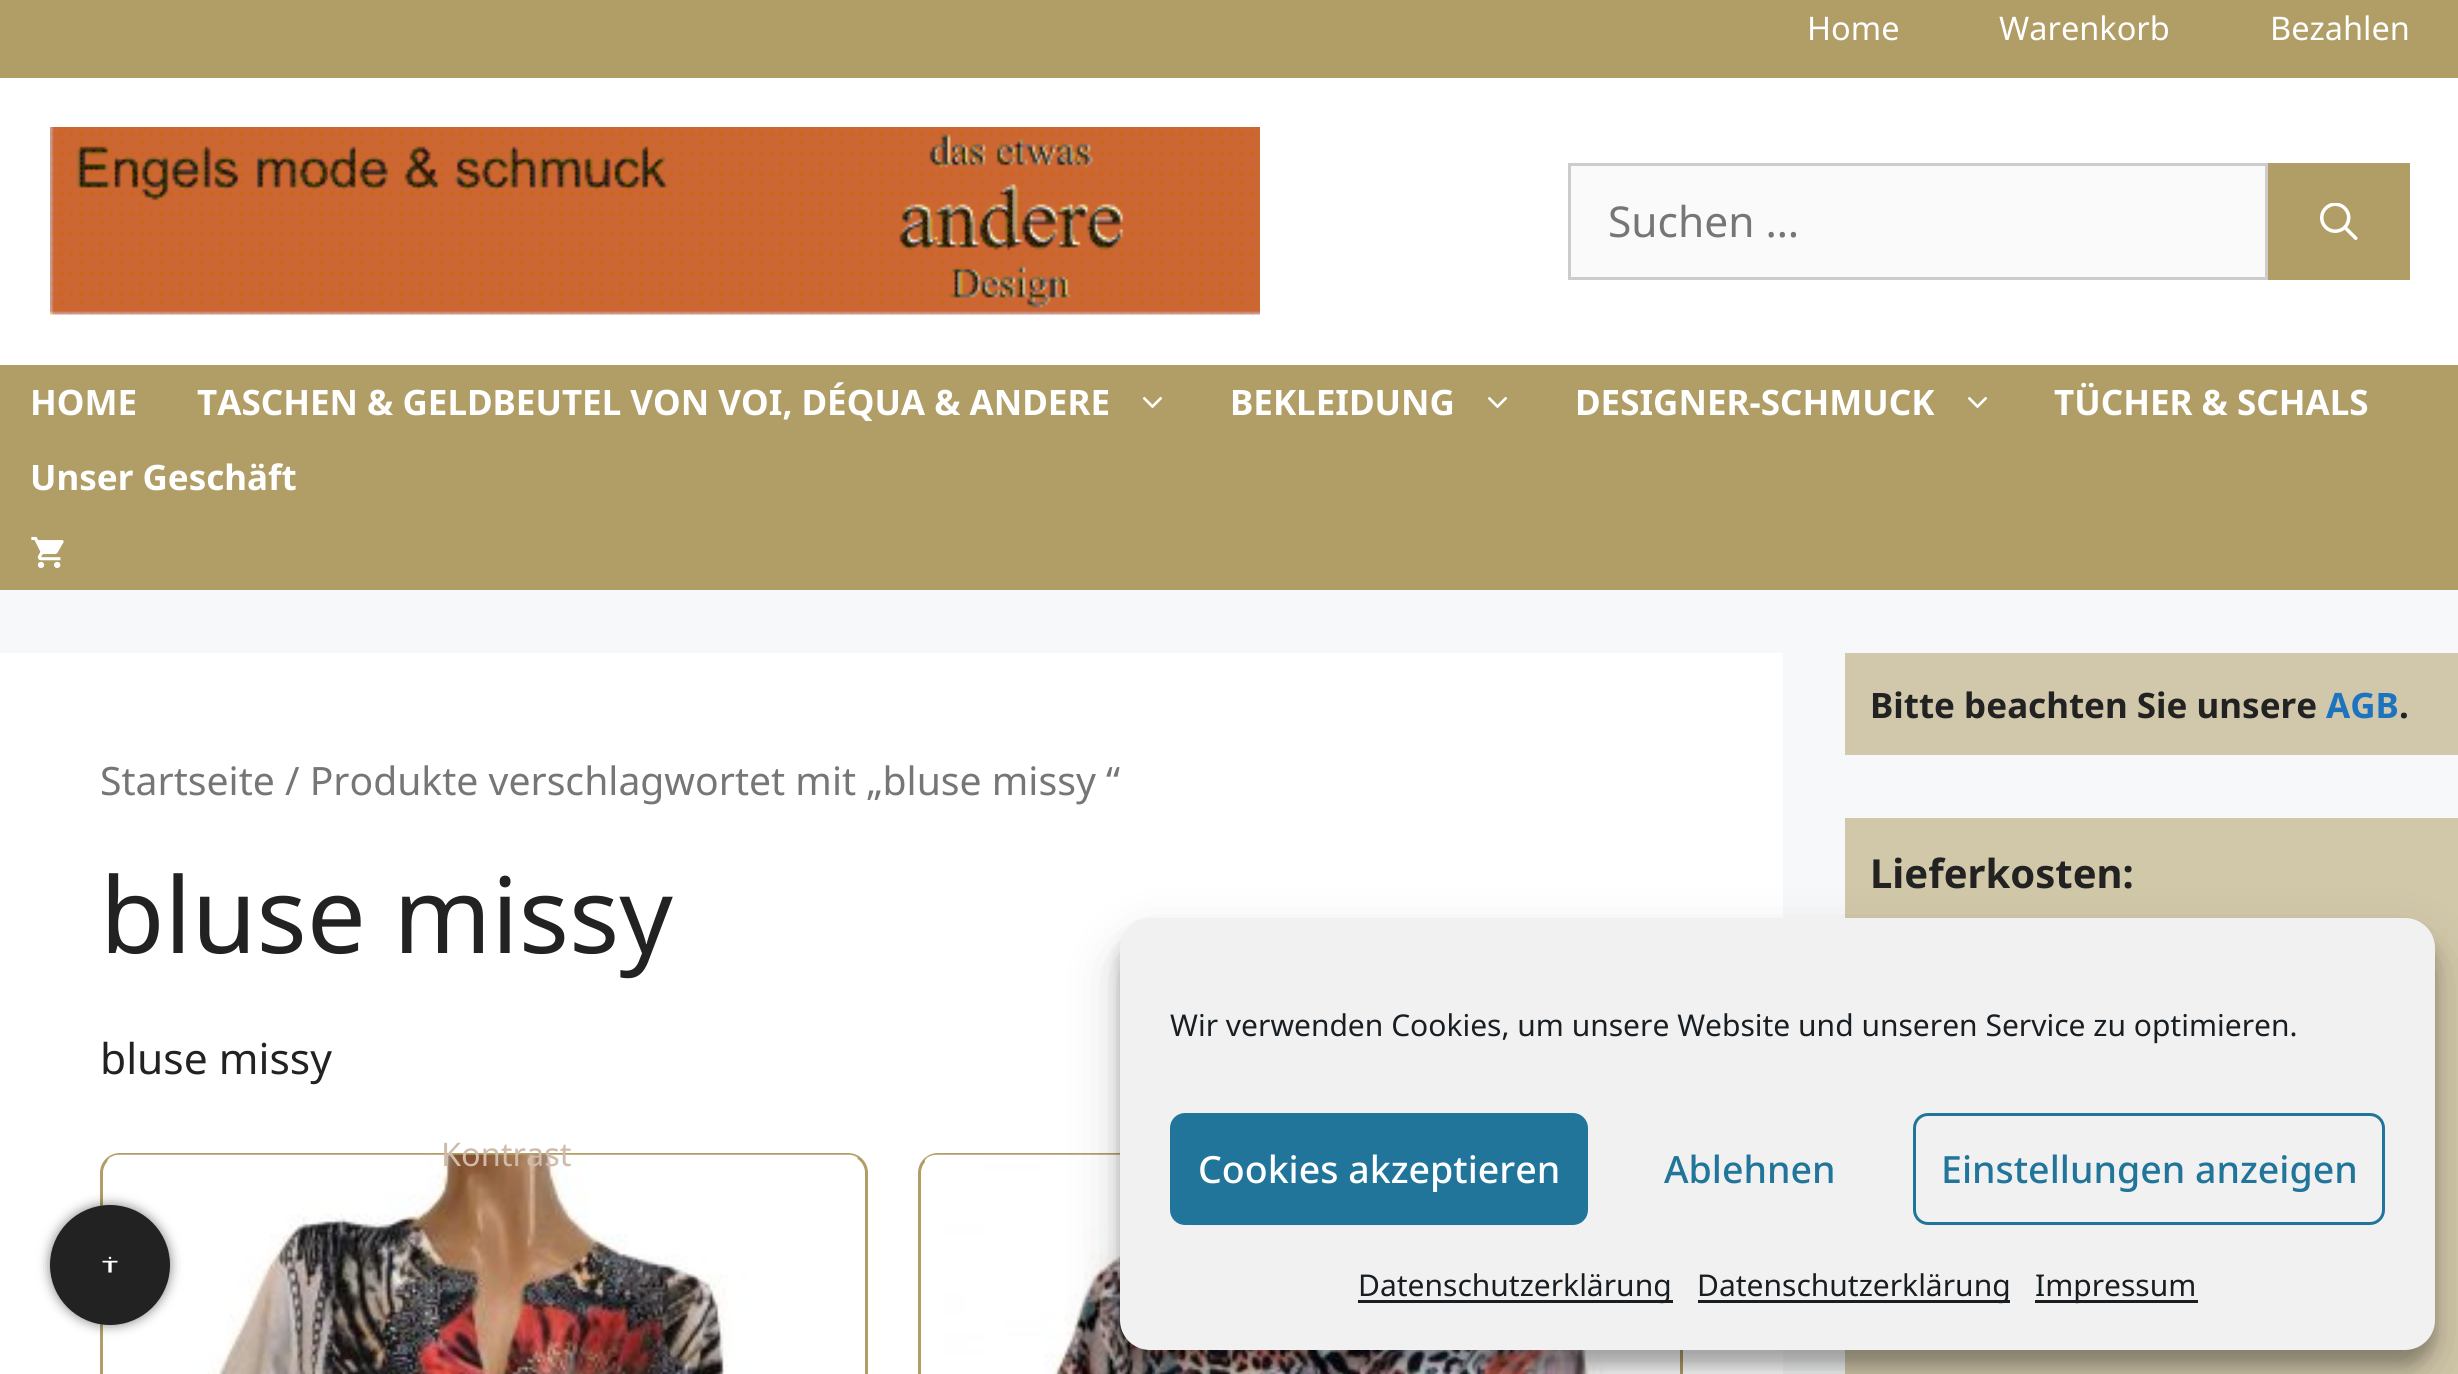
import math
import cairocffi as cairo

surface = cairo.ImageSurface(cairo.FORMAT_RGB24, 2458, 1374)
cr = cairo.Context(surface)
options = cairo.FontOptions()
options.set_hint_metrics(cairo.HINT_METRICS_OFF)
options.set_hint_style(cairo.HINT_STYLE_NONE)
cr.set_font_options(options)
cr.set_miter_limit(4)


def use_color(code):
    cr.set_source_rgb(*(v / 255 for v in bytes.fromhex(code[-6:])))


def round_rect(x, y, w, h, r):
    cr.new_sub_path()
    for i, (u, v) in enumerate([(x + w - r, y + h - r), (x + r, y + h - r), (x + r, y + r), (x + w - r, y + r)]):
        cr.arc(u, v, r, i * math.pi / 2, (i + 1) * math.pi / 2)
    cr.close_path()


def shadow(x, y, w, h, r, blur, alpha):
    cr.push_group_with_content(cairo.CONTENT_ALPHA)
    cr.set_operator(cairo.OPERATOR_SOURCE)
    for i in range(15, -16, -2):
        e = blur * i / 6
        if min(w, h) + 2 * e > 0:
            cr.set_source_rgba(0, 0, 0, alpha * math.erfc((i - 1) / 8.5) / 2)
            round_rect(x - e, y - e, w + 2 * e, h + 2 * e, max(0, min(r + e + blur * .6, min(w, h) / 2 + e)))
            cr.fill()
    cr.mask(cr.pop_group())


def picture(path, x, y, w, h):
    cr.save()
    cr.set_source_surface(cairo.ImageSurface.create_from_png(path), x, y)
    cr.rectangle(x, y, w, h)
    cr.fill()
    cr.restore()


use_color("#f7f8f9")
cr.paint()
use_color("#b09e66")
cr.rectangle(0, 0, 2458, 78)
cr.fill()
cr.select_font_face("Noto Sans")
cr.set_font_size(32.5)
use_color("#ffffff")
cr.move_to(1807, 40)
cr.show_text("Home")
cr.move_to(1999, 40)
cr.show_text("Warenkorb")
cr.move_to(2270, 40)
cr.show_text("Bezahlen")
cr.rectangle(0, 78, 2458, 287)
cr.fill()
picture("img1.png", 50, 127, 1210, 188)
use_color("#fafafa")
cr.rectangle(1569.5, 164.5, 697, 114)
cr.fill_preserve()
use_color("#cccccc")
cr.set_line_width(3)
cr.stroke()
cr.set_font_size(42.5)
use_color("#767676")
cr.move_to(1608, 237)
cr.show_text("Suchen …")
use_color("#b09e66")
cr.rectangle(2268, 163, 142, 117)
cr.fill()
picture("img2.png", 2320, 203, 38, 37)
cr.rectangle(0, 365, 2458, 225)
cr.fill()
cr.select_font_face("Noto Sans", cairo.FONT_SLANT_NORMAL, cairo.FONT_WEIGHT_BOLD)
cr.set_font_size(35)
use_color("#ffffff")
cr.move_to(30, 415)
cr.show_text("HOME")
cr.move_to(197, 415)
cr.show_text("TASCHEN & GELDBEUTEL VON VOI, DÉQUA & ANDERE")
picture("img3.png", 1142, 396, 21, 13)
cr.move_to(1230, 415)
cr.show_text("BEKLEIDUNG")
picture("img3.png", 1487, 396, 21, 13)
cr.move_to(1575, 415)
cr.show_text("DESIGNER-SCHMUCK")
picture("img3.png", 1967, 396, 21, 13)
cr.move_to(2054, 415)
cr.show_text("TÜCHER & SCHALS")
cr.move_to(30, 490)
cr.show_text("Unser Geschäft")
picture("img4.png", 31, 536, 33, 32)
cr.rectangle(0, 653, 1783, 721)
cr.fill()
cr.select_font_face("Noto Sans")
cr.set_font_size(39.1)
use_color("#767676")
cr.move_to(100, 795)
cr.show_text("Startseite / Produkte verschlagwortet mit „bluse missy “")
cr.set_font_size(105)
use_color("#222222")
cr.move_to(100, 953)
cr.show_text("bluse missy")
cr.set_font_size(42.5)
cr.move_to(100, 1074)
cr.show_text("bluse missy")
round_rect(101.5, 1154.5, 765, 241, 18.5)
use_color("#b09e66")
cr.stroke()
picture("img5.png", 107, 1154, 751, 220)
round_rect(919.5, 1154.5, 762, 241, 18.5)
cr.stroke()
picture("img6.png", 925, 1154, 750, 220)
use_color("#d1c7aa")
cr.rectangle(1845, 653, 613, 102)
cr.fill()
cr.select_font_face("Noto Sans", cairo.FONT_SLANT_NORMAL, cairo.FONT_WEIGHT_BOLD)
cr.set_font_size(35)
use_color("#222222")
cr.move_to(1870, 718)
cr.show_text("Bitte beachten Sie unsere")
use_color("#1e73be")
cr.move_to(2326, 718)
cr.show_text("AGB")
use_color("#222222")
cr.move_to(2399, 718)
cr.show_text(".")
use_color("#d1c7a9")
cr.rectangle(1845, 818, 613, 556)
cr.fill()
cr.set_font_size(40)
use_color("#222222")
cr.move_to(1870, 888)
cr.show_text("Lieferkosten:")
cr.select_font_face("Noto Sans")
cr.set_font_size(32.5)
use_color("#cfbbaa")
cr.move_to(441, 1166)
cr.show_text("Kontrast")
use_color("#000000")
shadow(1120, 933, 1315, 432, 30, 7.5, 0.23)
shadow(1120, 943, 1315, 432, 30, 25, 0.19)
use_color("#f1f1f1")
round_rect(1120, 918, 1315, 432, 30)
cr.fill()
cr.set_font_size(30)
use_color("#191e23")
cr.move_to(1170, 1036)
cr.show_text("Wir verwenden Cookies, um unsere Website und unseren Service zu optimieren.")
use_color("#21759b")
round_rect(1171.5, 1114.5, 415, 109, 13.5)
cr.fill_preserve()
cr.stroke()
cr.select_font_face("Noto Sans Medium")
cr.set_font_size(37.5)
use_color("#ffffff")
cr.move_to(1198, 1183)
cr.show_text("Cookies akzeptieren")
use_color("#21759b")
cr.move_to(1664, 1183)
cr.show_text("Ablehnen")
round_rect(1914.5, 1114.5, 469, 109, 13.5)
cr.stroke()
cr.move_to(1941, 1183)
cr.show_text("Einstellungen anzeigen")
use_color("#191e23")
cr.rectangle(1358, 1300, 315, 3)
cr.fill()
cr.select_font_face("Noto Sans")
cr.set_font_size(30)
cr.move_to(1358, 1296)
cr.show_text("Datenschutzerklärung")
cr.rectangle(1698, 1300, 312, 3)
cr.fill()
cr.move_to(1697, 1296)
cr.show_text("Datenschutzerklärung")
cr.rectangle(2035, 1300, 163, 3)
cr.fill()
cr.move_to(2035, 1296)
cr.show_text("Impressum")
use_color("#000000")
shadow(50, 1205, 120, 120, 60, 6, 0.5)
use_color("#222222")
cr.arc(110, 1265, 60, 0, 2 * math.pi)
cr.fill()
picture("img7.png", 102, 1256, 16, 17)
surface.write_to_png("result.png")
